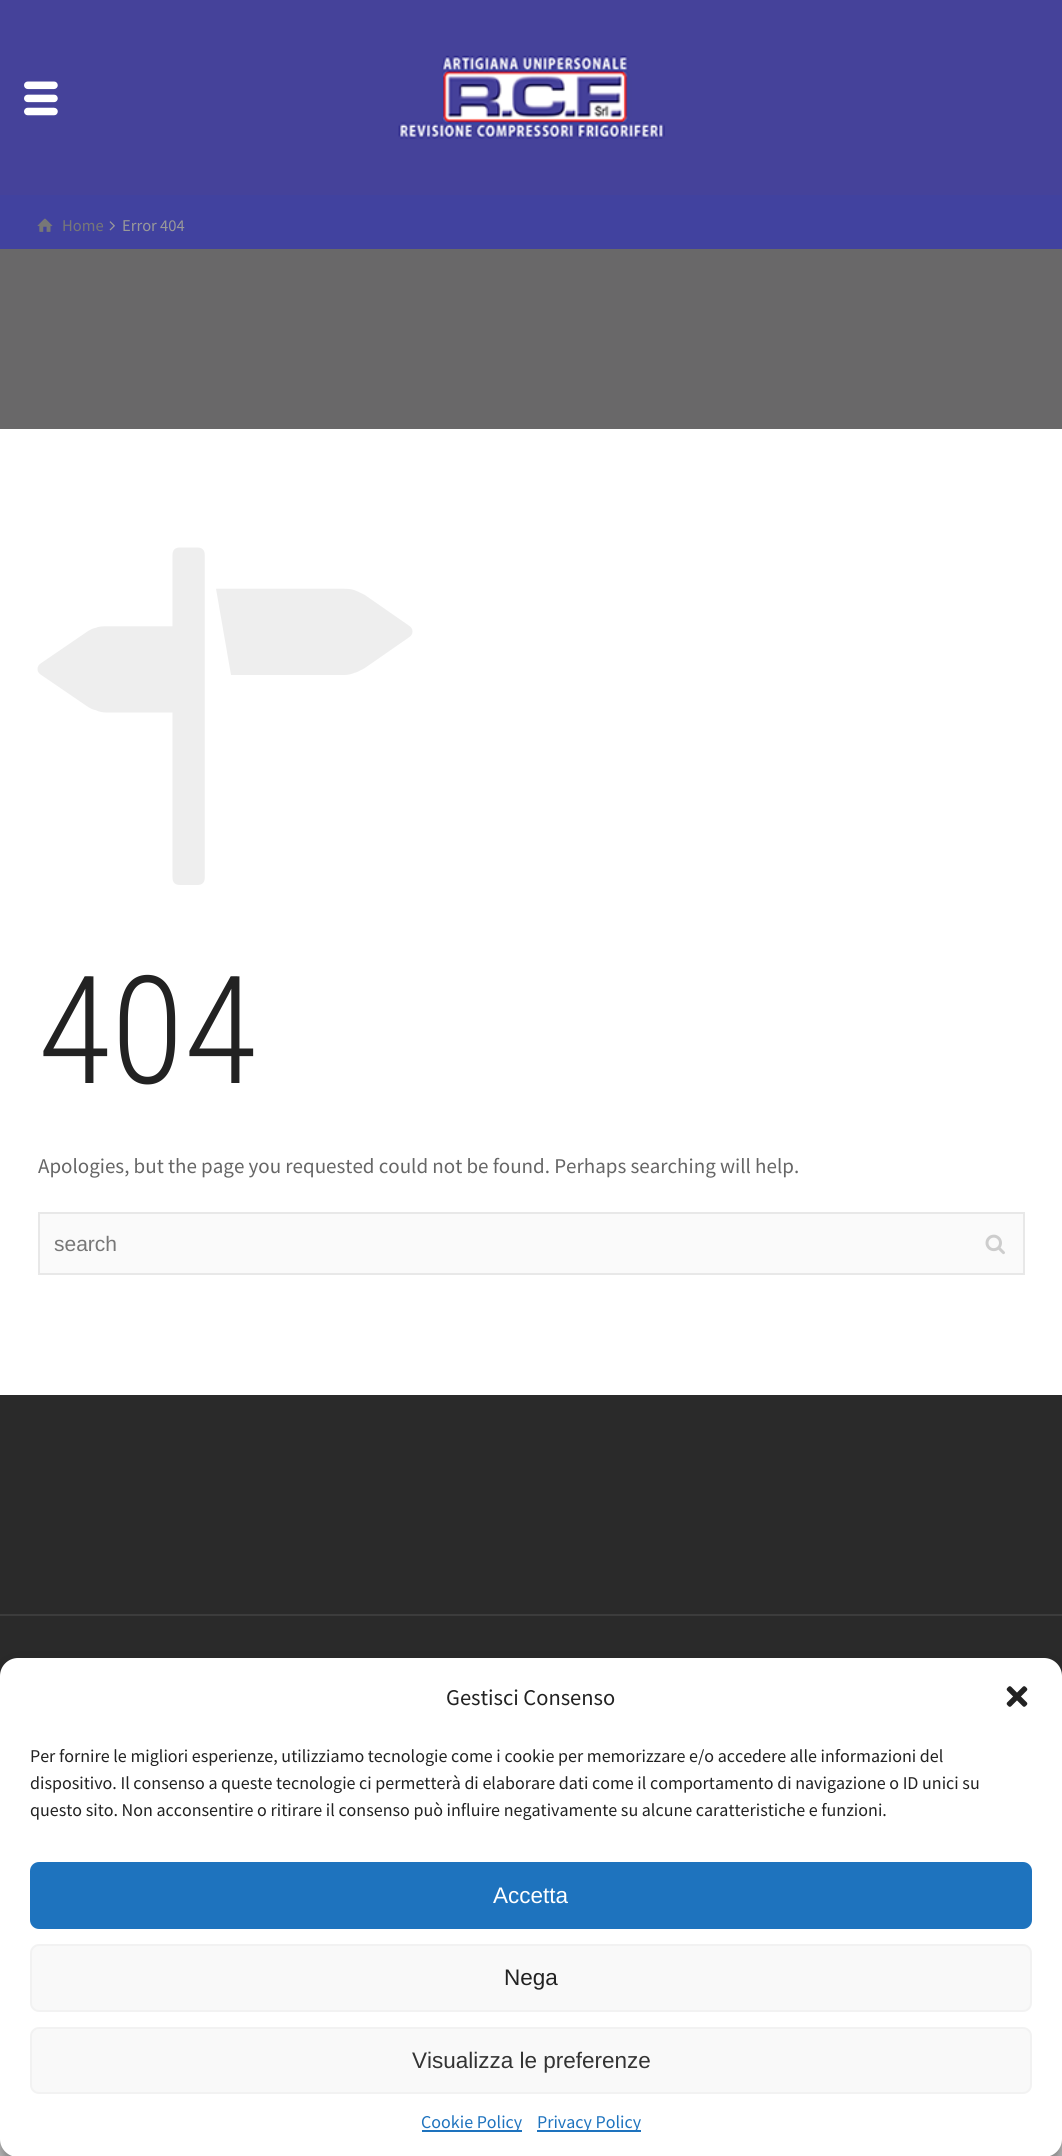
import math
import cairocffi as cairo

surface = cairo.ImageSurface(cairo.FORMAT_RGB24, 1062, 2156)
cr = cairo.Context(surface)
options = cairo.FontOptions()
options.set_hint_metrics(cairo.HINT_METRICS_OFF)
options.set_hint_style(cairo.HINT_STYLE_NONE)
cr.set_font_options(options)
cr.set_miter_limit(4)


def use_color(code):
    cr.set_source_rgb(*(v / 255 for v in bytes.fromhex(code[-6:])))


def round_rect(x, y, w, h, r):
    cr.new_sub_path()
    for i, (u, v) in enumerate([(x + w - r, y + h - r), (x + r, y + h - r), (x + r, y + r), (x + w - r, y + r)]):
        cr.arc(u, v, r, i * math.pi / 2, (i + 1) * math.pi / 2)
    cr.close_path()


def shadow(x, y, w, h, r, blur, alpha):
    cr.push_group_with_content(cairo.CONTENT_ALPHA)
    cr.set_operator(cairo.OPERATOR_SOURCE)
    for i in range(15, -16, -2):
        e = blur * i / 6
        if min(w, h) + 2 * e > 0:
            cr.set_source_rgba(0, 0, 0, alpha * math.erfc((i - 1) / 8.5) / 2)
            round_rect(x - e, y - e, w + 2 * e, h + 2 * e, max(0, min(r + e + blur * .6, min(w, h) / 2 + e)))
            cr.fill()
    cr.mask(cr.pop_group())


def picture(path, x, y, w, h):
    cr.save()
    cr.set_source_surface(cairo.ImageSurface.create_from_png(path), x, y)
    cr.rectangle(x, y, w, h)
    cr.fill()
    cr.restore()


use_color("#cccccc")
cr.paint()
use_color("#45429a")
cr.rectangle(0, 0, 1062, 195)
cr.fill()
picture("img1.png", 24, 81, 34, 35)
picture("img2.png", 398, 55, 267, 84)
use_color("#696869")
cr.rectangle(0, 249, 1062, 180)
cr.fill()
use_color("#41429f")
cr.rectangle(0, 195, 1062, 54)
cr.fill()
picture("img3.png", 37, 218, 16, 14)
cr.select_font_face("Source Sans Pro")
cr.set_font_size(16.5)
use_color("#777777")
cr.move_to(62, 231)
cr.show_text("Home")
picture("img4.png", 109, 221, 6, 10)
use_color("#999999")
cr.move_to(122, 231)
cr.show_text("Error 404")
use_color("#ffffff")
cr.rectangle(0, 429, 1062, 966)
cr.fill()
picture("img5.png", 37, 547, 376, 338)
cr.select_font_face("Roboto Condensed Light")
cr.set_font_size(150)
use_color("#222222")
cr.move_to(38, 1083)
cr.show_text("404")
cr.select_font_face("Source Sans Pro")
cr.set_font_size(21)
use_color("#666666")
cr.move_to(38, 1173)
cr.show_text("Apologies, but the page you requested could not be found. Perhaps searching will help.")
use_color("#fafafa")
cr.rectangle(39, 1213, 985, 61)
cr.fill_preserve()
use_color("#e8e8e8")
cr.stroke()
cr.select_font_face("Liberation Sans")
use_color("#777777")
cr.move_to(54, 1251)
cr.show_text("search")
picture("img6.png", 985, 1234, 20, 21)
use_color("#2a2a2a")
cr.rectangle(0, 1395, 1062, 219)
cr.fill()
cr.rectangle(0, 1616, 1062, 60)
cr.fill()
use_color("#3c3c3c")
cr.rectangle(0, 1614, 1062, 2)
cr.fill()
use_color("#000000")
shadow(0, 1667, 1062, 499, 18, 4.5, 0.23)
shadow(0, 1673, 1062, 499, 18, 15, 0.19)
use_color("#ffffff")
round_rect(0, 1658, 1062, 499, 18)
cr.fill()
cr.select_font_face("Source Sans Pro")
cr.set_font_size(22.5)
use_color("#222222")
cr.move_to(446, 1705)
cr.show_text("Gestisci Consenso")
picture("img7.png", 1006, 1686, 22, 21)
cr.set_font_size(18)
cr.move_to(30, 1762)
cr.show_text("Per fornire le migliori esperienze, utilizziamo tecnologie come i cookie per memorizzare e/o accedere alle informazioni del")
cr.move_to(30, 1789)
cr.show_text("dispositivo. Il consenso a queste tecnologie ci permetterà di elaborare dati come il comportamento di navigazione o ID unici su")
cr.move_to(30, 1816)
cr.show_text("questo sito. Non acconsentire o ritirare il consenso può influire negativamente su alcune caratteristiche e funzioni.")
use_color("#1e73be")
round_rect(31, 1863, 1000, 65, 8)
cr.fill_preserve()
cr.stroke()
cr.select_font_face("Liberation Sans")
cr.set_font_size(22.5)
use_color("#ffffff")
cr.move_to(493, 1903)
cr.show_text("Accetta")
use_color("#f9f9f9")
round_rect(31, 1945, 1000, 66, 8)
cr.fill_preserve()
use_color("#f2f2f2")
cr.stroke()
use_color("#222222")
cr.move_to(504, 1985)
cr.show_text("Nega")
use_color("#f9f9f9")
round_rect(31, 2028, 1000, 65, 8)
cr.fill_preserve()
use_color("#f2f2f2")
cr.stroke()
use_color("#333333")
cr.move_to(412, 2068)
cr.show_text("Visualizza le preferenze")
use_color("#1e73be")
cr.rectangle(422, 2130, 100, 2)
cr.fill()
cr.select_font_face("Source Sans Pro")
cr.set_font_size(18)
cr.move_to(421, 2128)
cr.show_text("Cookie Policy")
cr.rectangle(537, 2130, 104, 2)
cr.fill()
cr.move_to(537, 2128)
cr.show_text("Privacy Policy")
surface.write_to_png("result.png")
